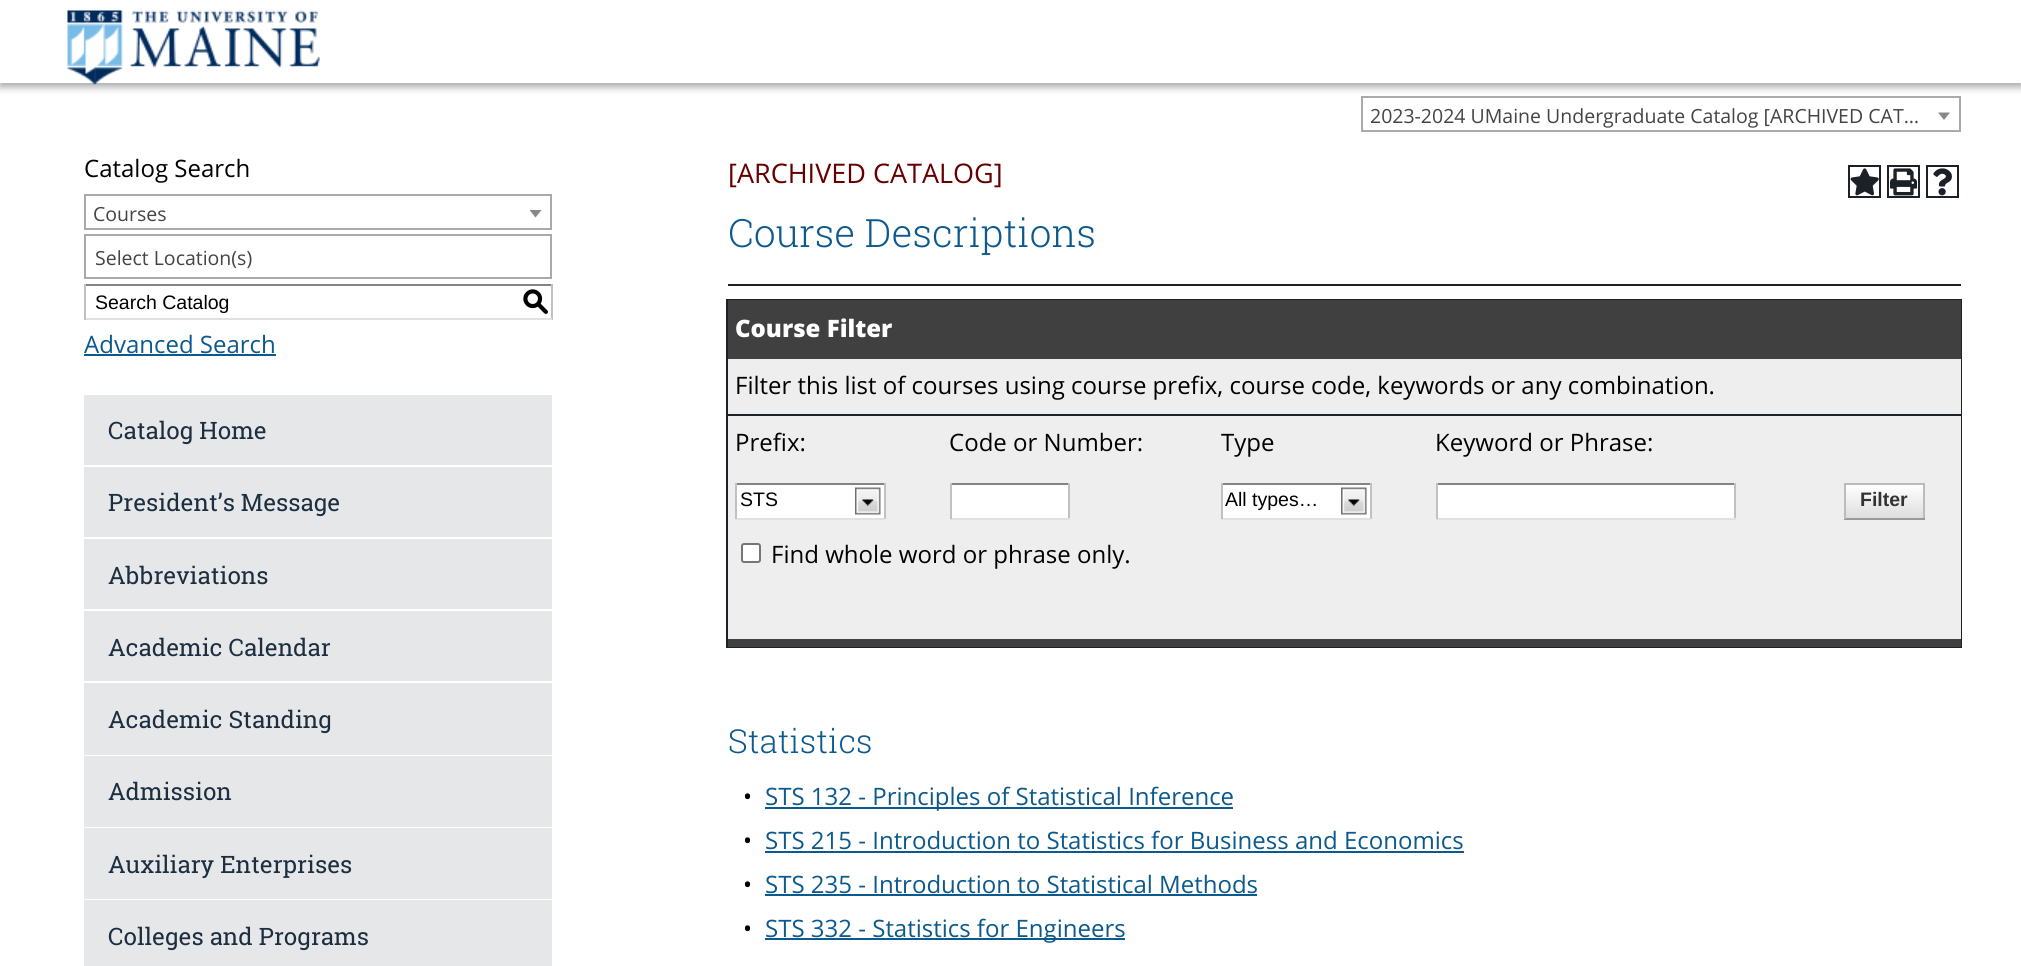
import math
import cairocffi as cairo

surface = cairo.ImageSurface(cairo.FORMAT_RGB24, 2021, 966)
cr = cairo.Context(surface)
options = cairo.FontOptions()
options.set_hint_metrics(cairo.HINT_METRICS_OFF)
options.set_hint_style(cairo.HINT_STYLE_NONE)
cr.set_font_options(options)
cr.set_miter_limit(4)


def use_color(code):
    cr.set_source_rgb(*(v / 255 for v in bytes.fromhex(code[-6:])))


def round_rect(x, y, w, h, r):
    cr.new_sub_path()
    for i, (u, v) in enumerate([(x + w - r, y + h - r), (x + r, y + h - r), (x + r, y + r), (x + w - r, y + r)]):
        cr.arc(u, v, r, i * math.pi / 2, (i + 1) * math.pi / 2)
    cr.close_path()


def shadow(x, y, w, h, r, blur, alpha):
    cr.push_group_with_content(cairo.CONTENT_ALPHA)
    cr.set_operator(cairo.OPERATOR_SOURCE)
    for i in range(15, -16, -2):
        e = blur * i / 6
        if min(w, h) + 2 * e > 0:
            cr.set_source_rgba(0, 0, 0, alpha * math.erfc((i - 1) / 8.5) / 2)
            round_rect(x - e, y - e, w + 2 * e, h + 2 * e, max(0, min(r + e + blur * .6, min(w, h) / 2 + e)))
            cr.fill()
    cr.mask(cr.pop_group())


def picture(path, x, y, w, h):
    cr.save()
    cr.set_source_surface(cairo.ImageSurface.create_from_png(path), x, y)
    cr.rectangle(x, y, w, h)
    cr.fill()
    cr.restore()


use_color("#ffffff")
cr.paint()
cr.rectangle(1362, 97, 598, 34)
use_color("#aaaaaa")
cr.stroke()
use_color("#000000")
shadow(0, 5, 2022, 82, 0, 4, 0.35)
use_color("#ffffff")
cr.rectangle(0, 0, 2021, 83)
cr.fill()
picture("img1.png", 67, 10, 253, 75)
cr.select_font_face("Open Sans")
cr.set_font_size(19.5)
use_color("#444444")
cr.move_to(1370, 123)
cr.show_text("2023-2024 UMaine Undergraduate Catalog [ARCHIVED CAT…")
use_color("#888888")
cr.new_path()
cr.move_to(1938, 112.5)
cr.line_to(1950, 112.5)
cr.line_to(1944, 120)
cr.close_path()
cr.fill()
cr.set_font_size(24)
use_color("#000000")
cr.move_to(84, 177)
cr.show_text("Catalog Search")
cr.rectangle(85, 195, 466, 34)
use_color("#aaaaaa")
cr.stroke()
cr.set_font_size(19.5)
use_color("#444444")
cr.move_to(93, 221)
cr.show_text("Courses")
use_color("#888888")
cr.new_path()
cr.move_to(529.5, 210)
cr.line_to(541.5, 210)
cr.line_to(535.5, 217.5)
cr.close_path()
cr.fill()
cr.rectangle(85, 235, 466, 43)
use_color("#aaaaaa")
cr.stroke()
use_color("#444444")
cr.move_to(95, 265)
cr.show_text("Select Location(s)")
use_color("#848484")
cr.rectangle(84, 284, 468, 2)
cr.fill()
use_color("#c1c1c1")
cr.rectangle(551, 284, 2, 36)
cr.fill()
use_color("#e1e1e1")
cr.rectangle(84, 318, 468, 2)
cr.fill()
use_color("#c1c1c1")
cr.rectangle(84, 284, 2, 36)
cr.fill()
cr.select_font_face("Liberation Sans")
use_color("#000000")
cr.move_to(95, 309)
cr.show_text("Search Catalog")
cr.select_font_face("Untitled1 Medium")
cr.set_font_size(27)
cr.move_to(522, 310)
cr.show_text("S")
cr.select_font_face("Open Sans")
cr.set_font_size(24)
use_color("#0c598e")
cr.move_to(84, 353)
cr.show_text("Advanced Search")
cr.rectangle(84, 354, 192, 2)
cr.fill()
use_color("#e6e7e8")
cr.rectangle(84, 395, 468, 70)
cr.fill()
cr.select_font_face("Roboto Slab")
use_color("#1c2e3f")
cr.move_to(108, 439)
cr.show_text("Catalog Home")
use_color("#e6e7e8")
cr.rectangle(84, 467, 468, 70)
cr.fill()
use_color("#1c2e3f")
cr.move_to(108, 511)
cr.show_text("President’s Message")
use_color("#e6e7e8")
cr.rectangle(84, 539, 468, 70)
cr.fill()
use_color("#1c2e3f")
cr.move_to(108, 584)
cr.show_text("Abbreviations")
use_color("#e6e7e8")
cr.rectangle(84, 611, 468, 70)
cr.fill()
use_color("#1c2e3f")
cr.move_to(108, 656)
cr.show_text("Academic Calendar")
use_color("#e6e7e8")
cr.rectangle(84, 683, 468, 72)
cr.fill()
use_color("#1c2e3f")
cr.move_to(108, 728)
cr.show_text("Academic Standing")
use_color("#e6e7e8")
cr.rectangle(84, 756, 468, 71)
cr.fill()
use_color("#1c2e3f")
cr.move_to(108, 800)
cr.show_text("Admission")
use_color("#e6e7e8")
cr.rectangle(84, 828, 468, 71)
cr.fill()
use_color("#1c2e3f")
cr.move_to(108, 873)
cr.show_text("Auxiliary Enterprises")
use_color("#e6e7e8")
cr.rectangle(84, 900, 468, 66)
cr.fill()
use_color("#1c2e3f")
cr.move_to(108, 945)
cr.show_text("Colleges and Programs")
cr.select_font_face("Open Sans")
cr.set_font_size(27)
use_color("#660000")
cr.move_to(728, 183)
cr.show_text("[ARCHIVED CATALOG]")
cr.rectangle(1849, 166, 31, 31)
use_color("#1c2128")
cr.stroke()
picture("img2.png", 1850, 168, 29, 28)
cr.rectangle(1888, 166, 31, 31)
cr.stroke()
picture("img3.png", 1890, 168, 27, 28)
cr.rectangle(1927, 166, 31, 31)
cr.stroke()
picture("img4.png", 1933, 168, 19, 28)
cr.select_font_face("Roboto Slab Light")
cr.set_font_size(39)
use_color("#0c598e")
cr.move_to(728, 247)
cr.show_text("Course Descriptions")
use_color("#1c2128")
cr.rectangle(728, 284, 1233, 2)
cr.fill()
cr.rectangle(727, 300, 1234, 347)
cr.stroke()
use_color("#414040")
cr.rectangle(728, 300, 1233, 59)
cr.fill()
cr.select_font_face("Open Sans ExtraBold")
cr.set_font_size(24)
use_color("#ffffff")
cr.move_to(735, 337)
cr.show_text("Course Filter")
use_color("#eeeeee")
cr.rectangle(728, 359, 1233, 55)
cr.fill()
use_color("#1c2128")
cr.rectangle(728, 414, 1233, 2)
cr.fill()
cr.select_font_face("Open Sans")
use_color("#000000")
cr.move_to(735, 394)
cr.show_text("Filter this list of courses using course prefix, course code, keywords or any combination.")
use_color("#eeeeee")
cr.rectangle(728, 416, 1233, 55)
cr.fill()
use_color("#000000")
cr.move_to(735, 451)
cr.show_text("Prefix:")
cr.move_to(949, 451)
cr.show_text("Code or Number:")
cr.move_to(1221, 451)
cr.show_text("Type")
cr.move_to(1435, 451)
cr.show_text("Keyword or Phrase:")
use_color("#eeeeee")
cr.rectangle(728, 471, 1233, 168)
cr.fill()
use_color("#ffffff")
cr.rectangle(737, 485, 147, 33)
cr.fill()
picture("img5.png", 855, 487, 26, 28)
use_color("#848484")
cr.rectangle(735, 483, 150, 2)
cr.fill()
use_color("#c1c1c1")
cr.rectangle(884, 483, 2, 36)
cr.fill()
use_color("#e1e1e1")
cr.rectangle(735, 518, 150, 2)
cr.fill()
use_color("#c1c1c1")
cr.rectangle(735, 483, 2, 36)
cr.fill()
cr.select_font_face("Liberation Sans")
cr.set_font_size(19.5)
use_color("#000000")
cr.move_to(740, 506)
cr.show_text("STS")
use_color("#ffffff")
cr.rectangle(952, 485, 116, 33)
cr.fill()
use_color("#848484")
cr.rectangle(950, 483, 120, 2)
cr.fill()
use_color("#c1c1c1")
cr.rectangle(1068, 483, 2, 36)
cr.fill()
use_color("#e1e1e1")
cr.rectangle(950, 518, 120, 2)
cr.fill()
use_color("#c1c1c1")
cr.rectangle(950, 483, 2, 36)
cr.fill()
use_color("#ffffff")
cr.rectangle(1223, 485, 147, 33)
cr.fill()
picture("img6.png", 1341, 487, 26, 28)
use_color("#848484")
cr.rectangle(1221, 483, 150, 2)
cr.fill()
use_color("#c1c1c1")
cr.rectangle(1370, 483, 2, 36)
cr.fill()
use_color("#e1e1e1")
cr.rectangle(1221, 518, 150, 2)
cr.fill()
use_color("#c1c1c1")
cr.rectangle(1221, 483, 2, 36)
cr.fill()
use_color("#000000")
cr.move_to(1225, 506)
cr.show_text("All types…")
use_color("#ffffff")
cr.rectangle(1438, 485, 296, 33)
cr.fill()
use_color("#848484")
cr.rectangle(1436, 483, 300, 2)
cr.fill()
use_color("#c1c1c1")
cr.rectangle(1734, 483, 2, 36)
cr.fill()
use_color("#e1e1e1")
cr.rectangle(1436, 518, 300, 2)
cr.fill()
use_color("#c1c1c1")
cr.rectangle(1436, 483, 2, 36)
cr.fill()
gradient = cairo.LinearGradient(1884, 485, 1884, 518)
gradient.add_color_stop_rgba(0, 1, 1, 1, 1)
gradient.add_color_stop_rgba(1, 0.867, 0.867, 0.867, 1)
cr.set_source(gradient)
cr.rectangle(1846, 485, 77, 33)
cr.fill()
use_color("#bbbbbb")
cr.rectangle(1844, 483, 81, 2)
cr.fill()
cr.rectangle(1923, 483, 2, 36)
cr.fill()
use_color("#999999")
cr.rectangle(1844, 518, 81, 2)
cr.fill()
use_color("#bbbbbb")
cr.rectangle(1844, 483, 2, 36)
cr.fill()
cr.select_font_face("Liberation Sans", cairo.FONT_SLANT_NORMAL, cairo.FONT_WEIGHT_BOLD)
use_color("#333333")
cr.move_to(1860, 506)
cr.show_text("Filter")
use_color("#ffffff")
round_rect(742, 544, 18, 18, 2)
cr.fill_preserve()
use_color("#767676")
cr.stroke()
cr.select_font_face("Open Sans")
cr.set_font_size(24)
use_color("#000000")
cr.move_to(771, 563)
cr.show_text("Find whole word or phrase only.")
use_color("#414040")
cr.rectangle(728, 639, 1233, 8)
cr.fill()
cr.select_font_face("Roboto Slab Light")
cr.set_font_size(33)
use_color("#0c598e")
cr.move_to(728, 753)
cr.show_text("Statistics")
cr.select_font_face("Open Sans")
cr.set_font_size(24)
use_color("#000000")
cr.move_to(743, 805)
cr.show_text("•")
use_color("#0c598e")
cr.rectangle(765, 807, 468, 2)
cr.fill()
cr.move_to(765, 805)
cr.show_text("STS 132 - Principles of Statistical Inference")
use_color("#000000")
cr.move_to(743, 849)
cr.show_text("•")
use_color("#0c598e")
cr.move_to(765, 849)
cr.show_text("STS 215 - Introduction to Statistics for Business and Economics")
cr.rectangle(765, 851, 699, 2)
cr.fill()
use_color("#000000")
cr.move_to(743, 893)
cr.show_text("•")
use_color("#0c598e")
cr.move_to(765, 893)
cr.show_text("STS 235 - Introduction to Statistical Methods")
cr.rectangle(765, 894, 492, 2)
cr.fill()
use_color("#000000")
cr.move_to(743, 937)
cr.show_text("•")
use_color("#0c598e")
cr.rectangle(765, 938, 360, 2)
cr.fill()
cr.move_to(765, 937)
cr.show_text("STS 332 - Statistics for Engineers")
surface.write_to_png("result.png")
